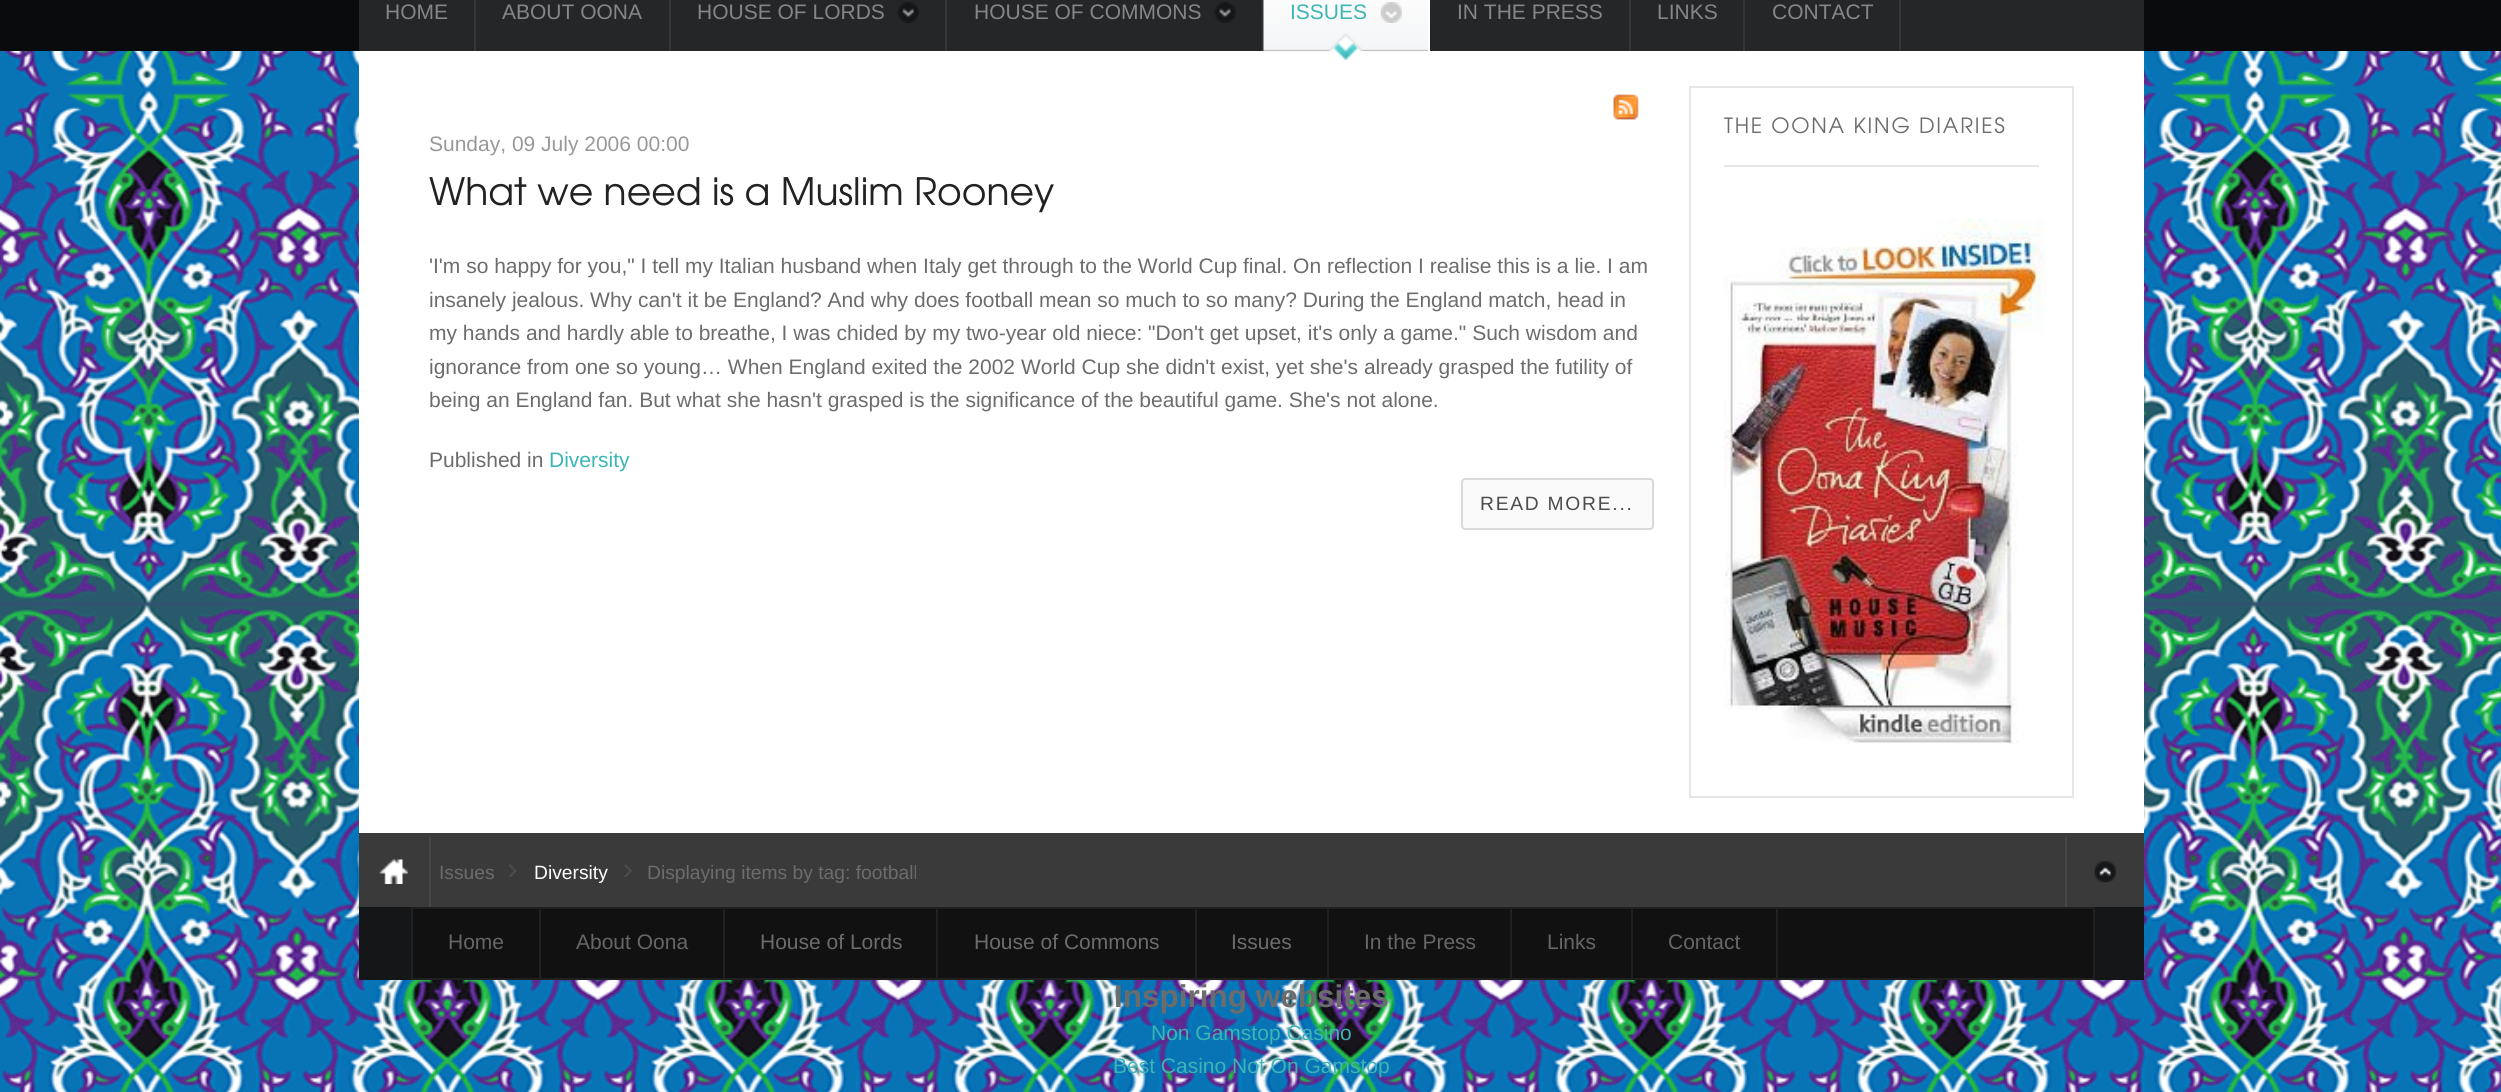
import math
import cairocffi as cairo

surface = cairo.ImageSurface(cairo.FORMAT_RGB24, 2501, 1092)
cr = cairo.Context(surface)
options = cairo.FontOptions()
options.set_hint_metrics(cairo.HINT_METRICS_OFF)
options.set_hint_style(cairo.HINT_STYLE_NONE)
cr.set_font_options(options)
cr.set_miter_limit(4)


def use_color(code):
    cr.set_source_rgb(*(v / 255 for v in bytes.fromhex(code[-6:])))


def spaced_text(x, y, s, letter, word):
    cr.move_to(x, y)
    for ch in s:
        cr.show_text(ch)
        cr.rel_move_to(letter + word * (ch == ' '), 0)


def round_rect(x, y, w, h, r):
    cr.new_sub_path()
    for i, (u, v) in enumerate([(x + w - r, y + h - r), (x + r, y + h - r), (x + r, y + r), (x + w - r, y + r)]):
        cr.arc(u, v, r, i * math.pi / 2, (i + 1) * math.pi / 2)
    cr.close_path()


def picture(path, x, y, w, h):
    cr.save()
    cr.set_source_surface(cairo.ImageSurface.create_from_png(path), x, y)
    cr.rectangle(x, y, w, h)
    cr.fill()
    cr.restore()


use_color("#ffffff")
cr.paint()
picture("img1.png", 0, 51, 2501, 1041)
use_color("#0a0b0c")
cr.rectangle(0, 0, 2501, 51)
cr.fill()
use_color("#252628")
cr.rectangle(359, 0, 1785, 51)
cr.fill()
use_color("#353637")
cr.rectangle(474, 0, 2, 51)
cr.fill()
cr.select_font_face("Liberation Sans")
cr.set_font_size(21)
use_color("#858687")
cr.move_to(385, 19)
cr.show_text("HOME")
use_color("#353637")
cr.rectangle(669, 0, 2, 51)
cr.fill()
use_color("#858687")
cr.move_to(502, 19)
cr.show_text("ABOUT OONA")
use_color("#353637")
cr.rectangle(945, 0, 2, 51)
cr.fill()
picture("img2.png", 897, 2, 22, 21)
use_color("#858687")
cr.move_to(697, 19)
cr.show_text("HOUSE OF LORDS")
use_color("#353637")
cr.rectangle(1262, 0, 2, 51)
cr.fill()
picture("img3.png", 1214, 2, 22, 21)
use_color("#858687")
cr.move_to(974, 19)
cr.show_text("HOUSE OF COMMONS")
use_color("#ffffff")
cr.rectangle(359, 51, 1785, 782)
cr.fill()
picture("img4.png", 1263, 0, 165, 60)
cr.rectangle(1428, 0, 2, 51)
cr.fill()
picture("img5.png", 1380, 2, 22, 21)
use_color("#3cb5b5")
cr.move_to(1290, 19)
cr.show_text("ISSUES")
use_color("#353637")
cr.rectangle(1629, 0, 2, 51)
cr.fill()
use_color("#858687")
cr.move_to(1457, 19)
cr.show_text("IN THE PRESS")
use_color("#353637")
cr.rectangle(1743, 0, 2, 51)
cr.fill()
use_color("#858687")
cr.move_to(1657, 19)
cr.show_text("LINKS")
use_color("#353637")
cr.rectangle(1899, 0, 2, 51)
cr.fill()
use_color("#858687")
cr.move_to(1772, 19)
cr.show_text("CONTACT")
cr.rectangle(1690, 87, 383, 710)
use_color("#e5e6e7")
cr.stroke()
cr.rectangle(1724, 165, 315, 2)
cr.fill()
cr.select_font_face("TeX Gyre Adventor")
use_color("#6c6c6c")
spaced_text(1724, 133, "THE OONA KING DIARIES", 1.75, 0)
picture("img6.png", 1724, 219, 322, 525)
picture("img7.png", 1613, 94, 26, 26)
cr.select_font_face("Liberation Sans")
use_color("#999999")
cr.move_to(429, 151)
cr.show_text("Sunday, 09 July 2006 00:00")
cr.select_font_face("TeX Gyre Adventor")
cr.set_font_size(37.75)
use_color("#222222")
cr.move_to(429, 205)
cr.show_text("What we need is a Muslim Rooney")
cr.select_font_face("Liberation Sans")
cr.set_font_size(21)
use_color("#6c6c6c")
cr.move_to(429, 273)
cr.show_text("'I'm so happy for you,\" I tell my Italian husband when Italy get through to the World Cup final. On reflection I realise this is a lie. I am")
cr.move_to(429, 307)
cr.show_text("insanely jealous. Why can't it be England? And why does football mean so much to so many? During the England match, head in")
cr.move_to(429, 340)
cr.show_text("my hands and hardly able to breathe, I was chided by my two-year old niece: \"Don't get upset, it's only a game.\" Such wisdom and")
cr.move_to(429, 374)
cr.show_text("ignorance from one so young… When England exited the 2002 World Cup she didn't exist, yet she's already grasped the futility of")
cr.move_to(429, 407)
cr.show_text("being an England fan. But what she hasn't grasped is the significance of the beautiful game. She's not alone.")
cr.move_to(429, 467)
cr.show_text("Published in")
use_color("#3cb5b5")
cr.move_to(549, 467)
cr.show_text("Diversity")
use_color("#fafafa")
round_rect(1462, 479, 191, 50, 3)
cr.fill_preserve()
use_color("#d9d9d9")
cr.stroke()
cr.set_font_size(19.25)
use_color("#4c4c4c")
spaced_text(1480, 510, "READ MORE...", 1.75, 0)
use_color("#3a3a3a")
cr.rectangle(359, 833, 1785, 74)
cr.fill()
picture("img8.png", 379, 859, 29, 25)
use_color("#454647")
cr.rectangle(429, 837, 2, 70)
cr.fill()
use_color("#6c6c6c")
cr.move_to(439, 879)
cr.show_text("Issues")
picture("img9.png", 509, 864, 8, 13)
use_color("#ffffff")
cr.move_to(534, 879)
cr.show_text("Diversity")
picture("img10.png", 624, 864, 8, 13)
use_color("#6c6c6c")
cr.move_to(647, 879)
cr.show_text("Displaying items by tag: football")
picture("img11.png", 2094, 861, 22, 22)
use_color("#454647")
cr.rectangle(2065, 837, 2, 70)
cr.fill()
use_color("#151618")
cr.rectangle(359, 907, 1785, 73)
cr.fill()
use_color("#111111")
cr.rectangle(412, 908, 1682, 71)
cr.fill_preserve()
use_color("#202020")
cr.stroke()
cr.rectangle(539, 908, 2, 70)
cr.fill()
cr.set_font_size(21)
use_color("#656667")
cr.move_to(448, 949)
cr.show_text("Home")
use_color("#202020")
cr.rectangle(723, 908, 2, 70)
cr.fill()
use_color("#656667")
cr.move_to(576, 949)
cr.show_text("About Oona")
use_color("#202020")
cr.rectangle(936, 908, 2, 70)
cr.fill()
use_color("#6c6c6c")
cr.move_to(760, 949)
cr.show_text("House of Lords")
use_color("#202020")
cr.rectangle(1195, 908, 2, 70)
cr.fill()
use_color("#6c6c6c")
cr.move_to(974, 949)
cr.show_text("House of Commons")
use_color("#202020")
cr.rectangle(1327, 908, 2, 70)
cr.fill()
use_color("#6c6c6c")
cr.move_to(1231, 949)
cr.show_text("Issues")
use_color("#202020")
cr.rectangle(1510, 908, 2, 70)
cr.fill()
use_color("#656667")
cr.move_to(1364, 949)
cr.show_text("In the Press")
use_color("#202020")
cr.rectangle(1631, 908, 2, 70)
cr.fill()
use_color("#656667")
cr.move_to(1547, 949)
cr.show_text("Links")
use_color("#202020")
cr.rectangle(1776, 908, 2, 70)
cr.fill()
use_color("#656667")
cr.move_to(1668, 949)
cr.show_text("Contact")
cr.select_font_face("Liberation Sans", cairo.FONT_SLANT_NORMAL, cairo.FONT_WEIGHT_BOLD)
cr.set_font_size(31.5)
use_color("#6c6c6c")
cr.move_to(1114, 1007)
cr.show_text("Inspiring websites")
cr.select_font_face("Liberation Sans")
cr.set_font_size(21)
use_color("#3cb5b5")
cr.move_to(1151, 1040)
cr.show_text("Non Gamstop Casino")
cr.move_to(1113, 1073)
cr.show_text("Best Casino Not On Gamstop")
surface.write_to_png("result.png")
